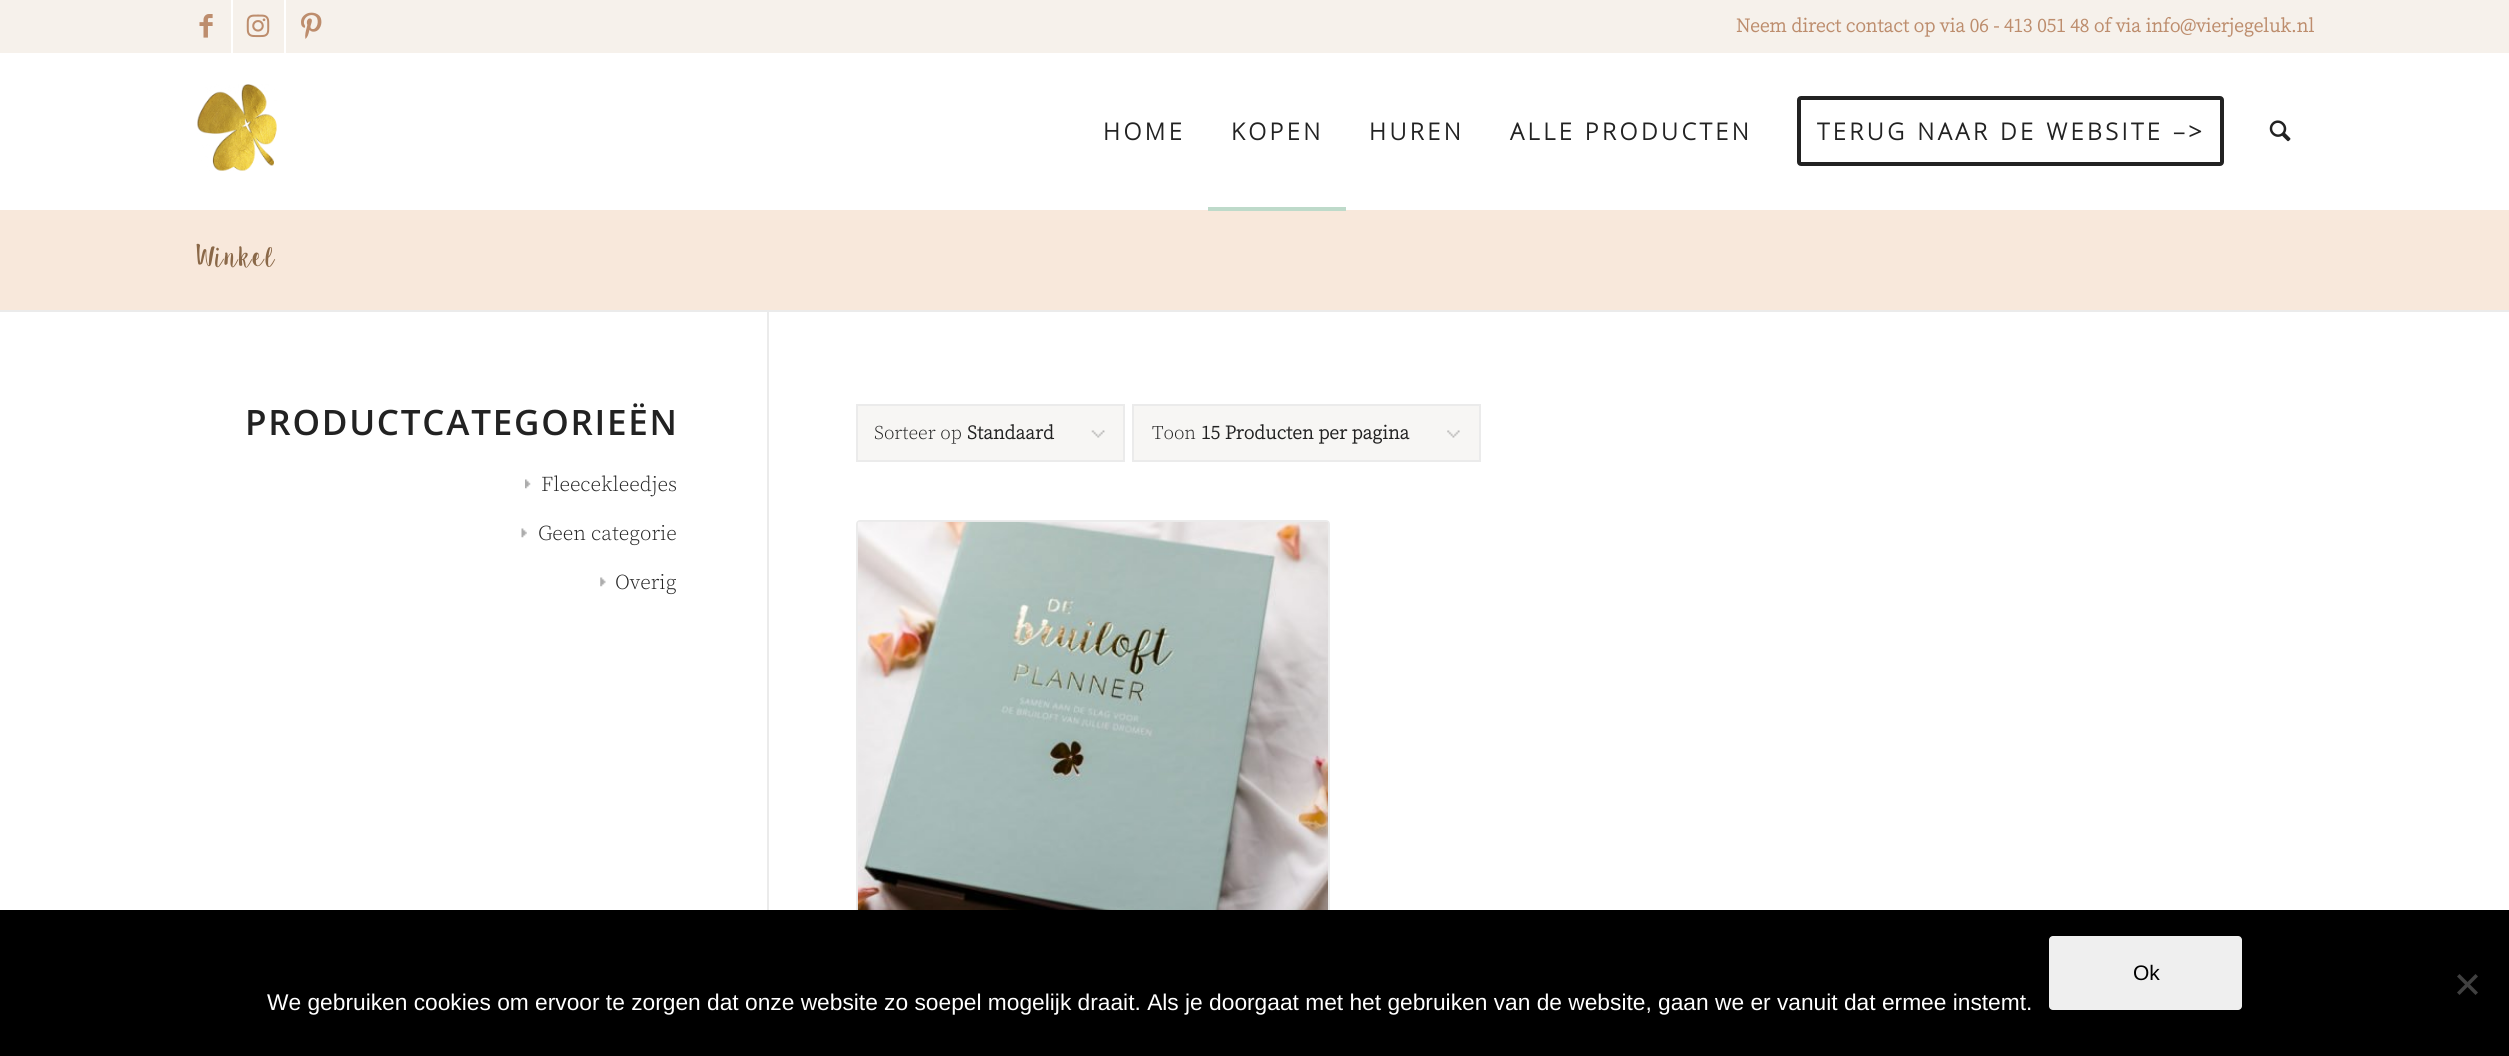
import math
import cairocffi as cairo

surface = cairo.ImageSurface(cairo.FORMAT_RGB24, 2509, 1056)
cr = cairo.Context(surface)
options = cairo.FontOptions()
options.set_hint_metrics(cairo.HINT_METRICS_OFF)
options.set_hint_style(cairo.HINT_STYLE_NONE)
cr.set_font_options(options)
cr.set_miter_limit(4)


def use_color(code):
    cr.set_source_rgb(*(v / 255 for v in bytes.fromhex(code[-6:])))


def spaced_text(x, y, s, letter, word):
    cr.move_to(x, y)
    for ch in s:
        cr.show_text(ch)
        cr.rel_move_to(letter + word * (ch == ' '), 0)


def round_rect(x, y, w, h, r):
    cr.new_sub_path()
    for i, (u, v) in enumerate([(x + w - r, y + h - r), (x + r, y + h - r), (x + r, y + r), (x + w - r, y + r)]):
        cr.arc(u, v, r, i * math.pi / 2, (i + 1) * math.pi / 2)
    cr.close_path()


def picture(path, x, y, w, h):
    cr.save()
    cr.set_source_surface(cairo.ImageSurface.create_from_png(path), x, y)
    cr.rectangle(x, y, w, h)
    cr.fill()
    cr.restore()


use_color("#ffffff")
cr.paint()
use_color("#f6f1eb")
cr.rectangle(0, 0, 2509, 53)
cr.fill()
use_color("#ffffff")
cr.rectangle(231, 0, 2, 53)
cr.fill()
picture("img1.png", 199, 14, 14, 24)
cr.rectangle(284, 0, 2, 53)
cr.fill()
picture("img2.png", 246, 14, 24, 24)
picture("img3.png", 301, 12, 21, 27)
cr.select_font_face("Source Serif Pro", cairo.FONT_SLANT_NORMAL, cairo.FONT_WEIGHT_BOLD)
cr.set_font_size(19.25)
use_color("#bd8d6d")
cr.move_to(1736, 32)
cr.show_text("Neem direct contact op via 06 - 413 051 48 of via info@vierjegeluk.nl")
picture("img4.png", 197, 84, 80, 87)
cr.select_font_face("Open Sans", cairo.FONT_SLANT_NORMAL, cairo.FONT_WEIGHT_BOLD)
cr.set_font_size(23.5)
use_color("#222222")
spaced_text(1103, 140, "HOME", 3.5, 0)
spaced_text(1231, 140, "KOPEN", 3.5, 0)
use_color("#f8e8db")
cr.rectangle(0, 210, 2509, 100)
cr.fill()
use_color("#bedaca")
cr.rectangle(1208, 207, 138, 4)
cr.fill()
use_color("#222222")
spaced_text(1369, 140, "HUREN", 3.5, 0)
spaced_text(1510, 140, "ALLE PRODUCTEN", 3.5, 0)
round_rect(1799, 98, 423, 66, 2)
cr.set_line_width(4)
cr.stroke()
spaced_text(1817, 140, "TERUG NAAR DE WEBSITE –>", 3.5, 0)
picture("img5.png", 2269, 120, 22, 22)
cr.select_font_face("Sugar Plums")
cr.set_font_size(28)
use_color("#8a6848")
cr.move_to(196, 266)
cr.show_text("Winkel")
use_color("#ebebeb")
cr.rectangle(0, 310, 2509, 2)
cr.fill()
cr.select_font_face("Open Sans SemiBold")
cr.set_font_size(35)
use_color("#222222")
spaced_text(245, 435, "PRODUCTCATEGORIEËN", 1.75, 0)
picture("img6.png", 525, 479, 6, 10)
cr.select_font_face("Source Serif Pro Light")
cr.set_font_size(21)
cr.move_to(541, 491)
cr.show_text("Fleecekleedjes")
picture("img7.png", 521, 528, 6, 10)
cr.move_to(538, 540)
cr.show_text("Geen categorie")
picture("img8.png", 600, 577, 6, 10)
cr.move_to(615, 589)
cr.show_text("Overig")
use_color("#ebebeb")
cr.rectangle(767, 312, 2, 598)
cr.fill()
use_color("#f7f6f4")
cr.rectangle(858, 406, 265, 54)
cr.fill()
picture("img9.png", 1091, 430, 14, 8)
cr.rectangle(857, 405, 267, 56)
use_color("#ebebeb")
cr.set_line_width(2)
cr.stroke()
cr.set_font_size(19.25)
use_color("#222222")
cr.move_to(874, 439)
cr.show_text("Sorteer op")
cr.select_font_face("Source Serif Pro", cairo.FONT_SLANT_NORMAL, cairo.FONT_WEIGHT_BOLD)
cr.move_to(967, 439)
cr.show_text("Standaard")
use_color("#f7f6f4")
cr.rectangle(1134, 406, 345, 54)
cr.fill()
picture("img10.png", 1447, 430, 13, 8)
cr.rectangle(1133, 405, 347, 56)
use_color("#ebebeb")
cr.stroke()
cr.select_font_face("Source Serif Pro Light")
use_color("#222222")
cr.move_to(1152, 439)
cr.show_text("Toon")
cr.select_font_face("Source Serif Pro", cairo.FONT_SLANT_NORMAL, cairo.FONT_WEIGHT_BOLD)
cr.move_to(1201, 439)
cr.show_text("15 Producten per pagina")
round_rect(857, 521, 472, 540, 3)
use_color("#ebebeb")
cr.stroke()
picture("img11.png", 857, 521, 471, 389)
use_color("#000000")
cr.rectangle(0, 910, 2509, 146)
cr.fill()
use_color("#efefef")
round_rect(2049, 936, 193, 74, 4)
cr.fill()
cr.select_font_face("Liberation Sans")
cr.set_font_size(21)
use_color("#000000")
cr.move_to(2133, 980)
cr.show_text("Ok")
use_color("#404040")
cr.new_path()
cr.move_to(2475.5, 974)
cr.line_to(2478, 976.5)
cr.line_to(2459.5, 995)
cr.line_to(2457, 992.5)
cr.close_path()
cr.fill()
cr.new_path()
cr.move_to(2457, 976.5)
cr.line_to(2459.5, 974)
cr.line_to(2478, 992.5)
cr.line_to(2475.5, 995)
cr.close_path()
cr.fill()
cr.set_font_size(22.75)
use_color("#ffffff")
cr.move_to(267, 1010)
cr.show_text("We gebruiken cookies om ervoor te zorgen dat onze website zo soepel mogelijk draait. Als je doorgaat met het gebruiken van de website, gaan we er vanuit dat ermee instemt.")
surface.write_to_png("result.png")
